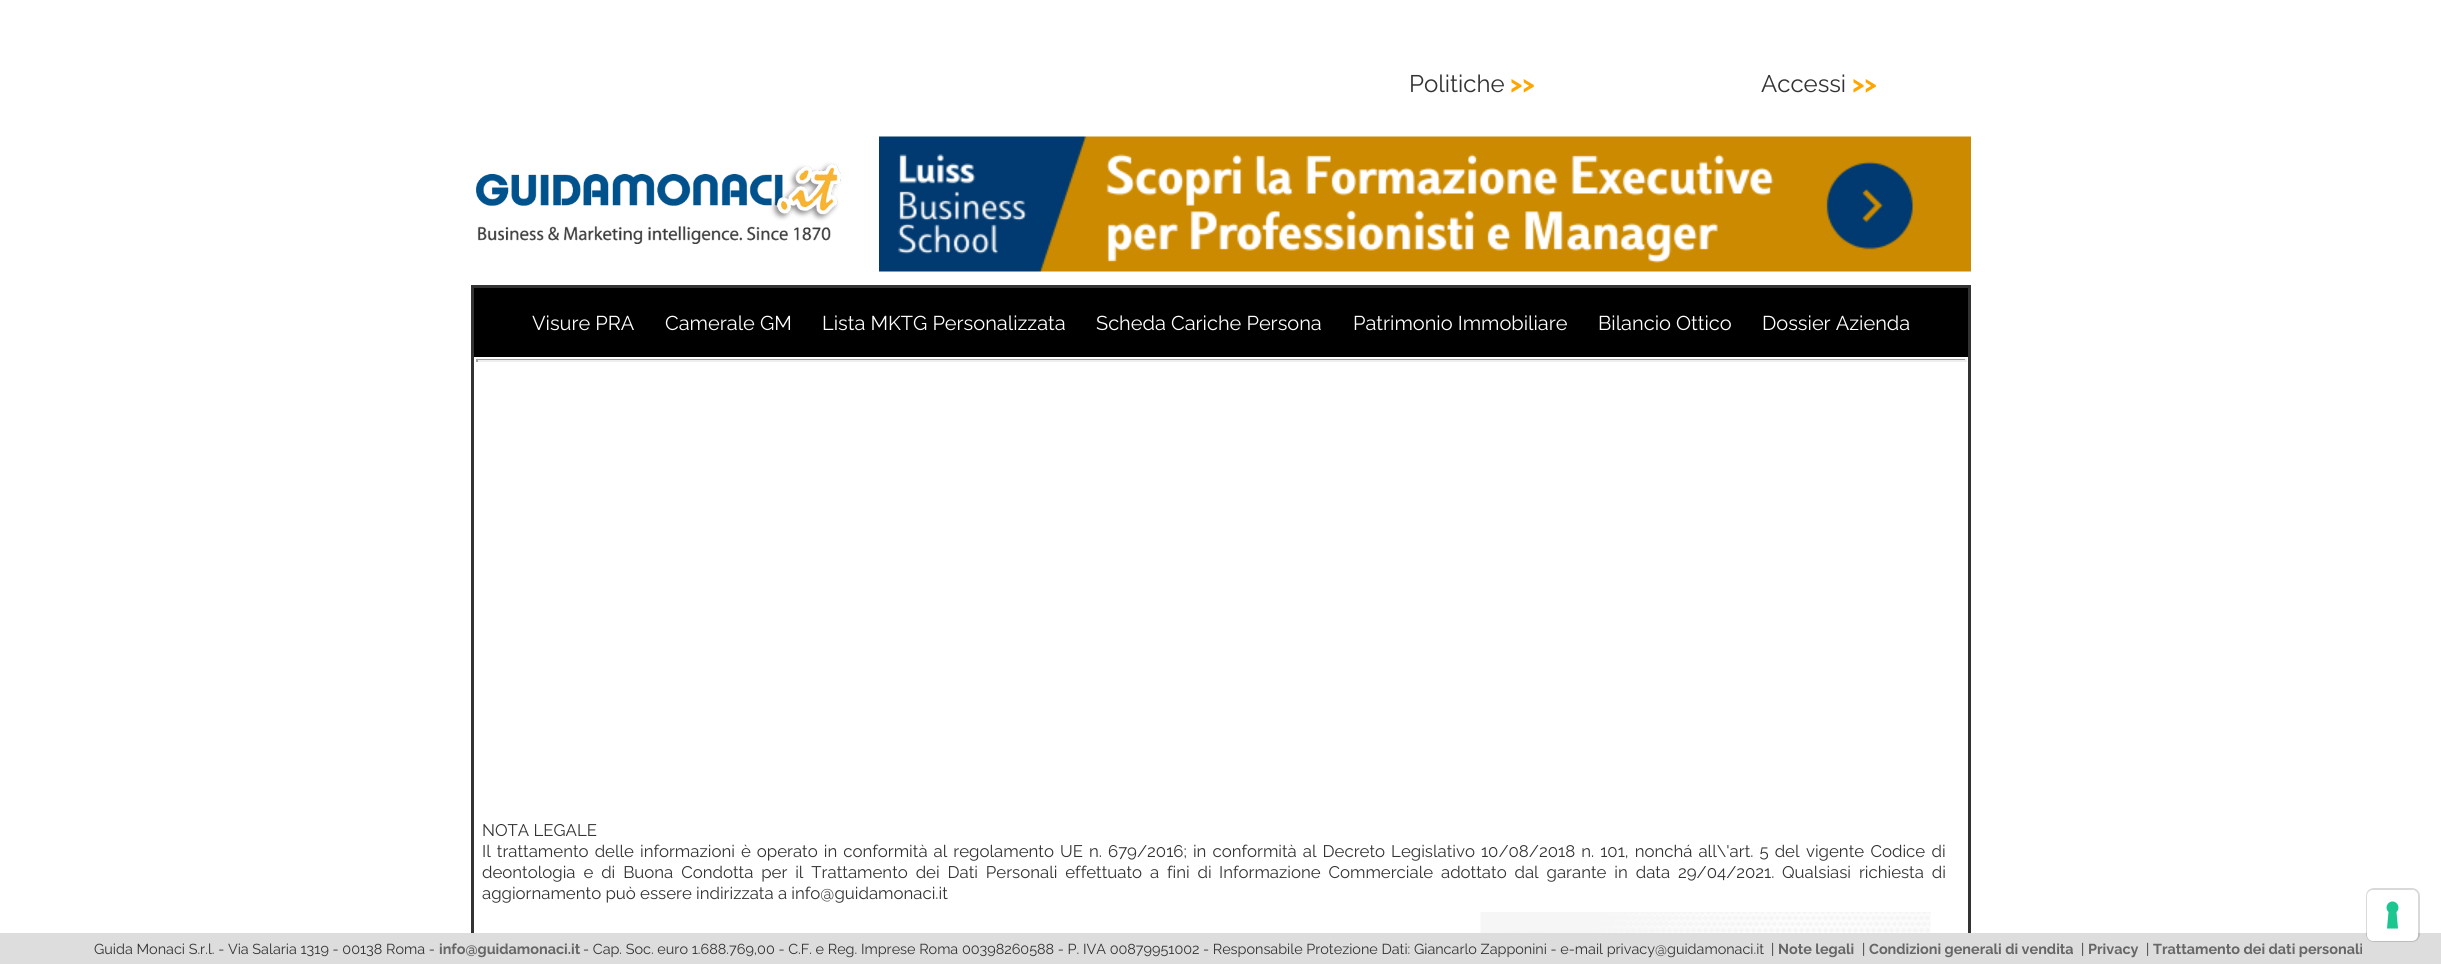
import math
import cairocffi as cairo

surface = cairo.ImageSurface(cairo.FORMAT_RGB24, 2441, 964)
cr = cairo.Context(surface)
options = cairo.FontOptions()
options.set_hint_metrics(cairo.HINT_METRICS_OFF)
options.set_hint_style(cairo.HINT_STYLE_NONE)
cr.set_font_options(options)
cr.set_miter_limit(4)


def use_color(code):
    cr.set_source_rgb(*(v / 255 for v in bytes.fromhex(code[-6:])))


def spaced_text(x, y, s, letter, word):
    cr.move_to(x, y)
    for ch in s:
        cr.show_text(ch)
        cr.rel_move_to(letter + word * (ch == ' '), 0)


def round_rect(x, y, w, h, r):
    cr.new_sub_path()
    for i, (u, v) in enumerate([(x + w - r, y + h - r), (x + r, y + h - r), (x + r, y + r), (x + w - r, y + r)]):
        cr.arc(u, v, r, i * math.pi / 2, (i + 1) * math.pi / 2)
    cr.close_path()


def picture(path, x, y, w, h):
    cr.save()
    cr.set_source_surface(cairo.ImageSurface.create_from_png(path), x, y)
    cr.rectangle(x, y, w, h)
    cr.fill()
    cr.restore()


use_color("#ffffff")
cr.paint()
cr.select_font_face("Raleway")
cr.set_font_size(24)
use_color("#333333")
cr.move_to(1409, 92)
cr.show_text("Politiche")
cr.select_font_face("Raleway", cairo.FONT_SLANT_NORMAL, cairo.FONT_WEIGHT_BOLD)
use_color("#ffa500")
cr.move_to(1510, 92)
cr.show_text(">>")
cr.select_font_face("Raleway")
use_color("#333333")
cr.move_to(1761, 92)
cr.show_text("Accessi")
cr.select_font_face("Raleway", cairo.FONT_SLANT_NORMAL, cairo.FONT_WEIGHT_BOLD)
use_color("#ffa500")
cr.move_to(1852, 92)
cr.show_text(">>")
picture("img1.png", 476, 162, 366, 82)
picture("img2.png", 879, 136, 1092, 136)
cr.rectangle(472.5, 286.5, 1497, 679)
use_color("#333333")
cr.set_line_width(3)
cr.stroke()
use_color("#000000")
cr.rectangle(474, 288, 1494, 69)
cr.fill()
cr.select_font_face("Raleway")
cr.set_font_size(20)
use_color("#ffffff")
cr.move_to(532, 330)
cr.show_text("Visure PRA")
cr.move_to(665, 330)
cr.show_text("Camerale GM")
cr.move_to(822, 330)
cr.show_text("Lista MKTG Personalizzata")
cr.move_to(1096, 330)
cr.show_text("Scheda Cariche Persona")
cr.move_to(1353, 330)
cr.show_text("Patrimonio Immobiliare")
cr.move_to(1598, 330)
cr.show_text("Bilancio Ottico")
cr.move_to(1762, 330)
cr.show_text("Dossier Azienda")
use_color("#9f9f9f")
cr.rectangle(476, 359, 1491, 1)
cr.fill()
use_color("#eeeeee")
cr.rectangle(1965, 359, 2, 3)
cr.fill()
cr.rectangle(476, 360, 1491, 2)
cr.fill()
use_color("#9f9f9f")
cr.rectangle(476, 359, 2, 3)
cr.fill()
cr.set_font_size(16.8)
use_color("#333333")
cr.move_to(482, 836)
cr.show_text("NOTA LEGALE")
spaced_text(482, 857, "Il trattamento delle informazioni è operato in conformità al regolamento UE", 0, 1.75)
spaced_text(1089, 857, "n. 679/2016; in conformità al Decreto Legislativo 10/08/2018 n. 101, nonchá all\\'art. 5 del", 0, 1.75)
spaced_text(1806, 857, "vigente Codice di", 0, 2)
spaced_text(482, 878, "deontologia e di Buona Condotta per il Trattamento dei Dati Personali effettuato a fini di", 0, 3.6)
spaced_text(1219, 878, "Informazione Commerciale adottato dal garante in data 29/04/2021.", 0, 3.6)
spaced_text(1782, 878, "Qualsiasi richiesta di", 0, 3.6)
cr.move_to(482, 899)
cr.show_text("aggiornamento può essere indirizzata a info@guidamonaci.it")
picture("img3.png", 1480, 912, 451, 21)
use_color("#dddddd")
cr.rectangle(0, 933, 2441, 31)
cr.fill()
round_rect(2367, 889, 52, 52, 7)
cr.set_source_rgba(0, 0, 0, 0.15)
cr.set_line_width(2)
cr.stroke()
use_color("#ffffff")
round_rect(2367, 890, 51, 51, 6)
cr.fill()
use_color("#1cc691")
cr.set_fill_rule(cairo.FILL_RULE_EVEN_ODD)
cr.new_path()
cr.move_to(2392.5, 901.5)
cr.curve_to(2398, 901.5, 2400.5, 908.5, 2396.5, 912)
cr.line_to(2398, 928.5)
cr.line_to(2387, 928.5)
cr.line_to(2388.5, 912)
cr.curve_to(2384.5, 908.5, 2387, 901.5, 2392.5, 901.5)
cr.close_path()
cr.fill()
cr.set_font_size(14.4)
use_color("#333333")
cr.move_to(94, 954)
cr.show_text("Guida Monaci S.r.l. - Via Salaria 1319 - 00138 Roma -")
cr.select_font_face("Raleway", cairo.FONT_SLANT_NORMAL, cairo.FONT_WEIGHT_BOLD)
use_color("#666666")
cr.move_to(439, 954)
cr.show_text("info@guidamonaci.it")
cr.select_font_face("Raleway")
use_color("#333333")
cr.move_to(583, 954)
cr.show_text("- Cap. Soc. euro 1.688.769,00 - C.F. e Reg. Imprese Roma 00398260588 - P. IVA 00879951002")
cr.move_to(1203, 954)
cr.show_text("- Responsabile Protezione Dati: Giancarlo Zapponini - e-mail privacy@guidamonaci.it")
cr.move_to(1771, 954)
cr.show_text("|")
cr.select_font_face("Raleway", cairo.FONT_SLANT_NORMAL, cairo.FONT_WEIGHT_BOLD)
use_color("#666666")
cr.move_to(1778, 954)
cr.show_text("Note legali")
cr.select_font_face("Raleway")
use_color("#333333")
cr.move_to(1862, 954)
cr.show_text("|")
cr.select_font_face("Raleway", cairo.FONT_SLANT_NORMAL, cairo.FONT_WEIGHT_BOLD)
use_color("#666666")
cr.move_to(1869, 954)
cr.show_text("Condizioni generali di vendita")
cr.select_font_face("Raleway")
use_color("#333333")
cr.move_to(2081, 954)
cr.show_text("|")
cr.select_font_face("Raleway", cairo.FONT_SLANT_NORMAL, cairo.FONT_WEIGHT_BOLD)
use_color("#666666")
cr.move_to(2088, 954)
cr.show_text("Privacy")
cr.select_font_face("Raleway")
use_color("#333333")
cr.move_to(2146, 954)
cr.show_text("|")
cr.select_font_face("Raleway", cairo.FONT_SLANT_NORMAL, cairo.FONT_WEIGHT_BOLD)
use_color("#666666")
cr.move_to(2153, 954)
cr.show_text("Trattamento dei dati personali")
surface.write_to_png("result.png")
